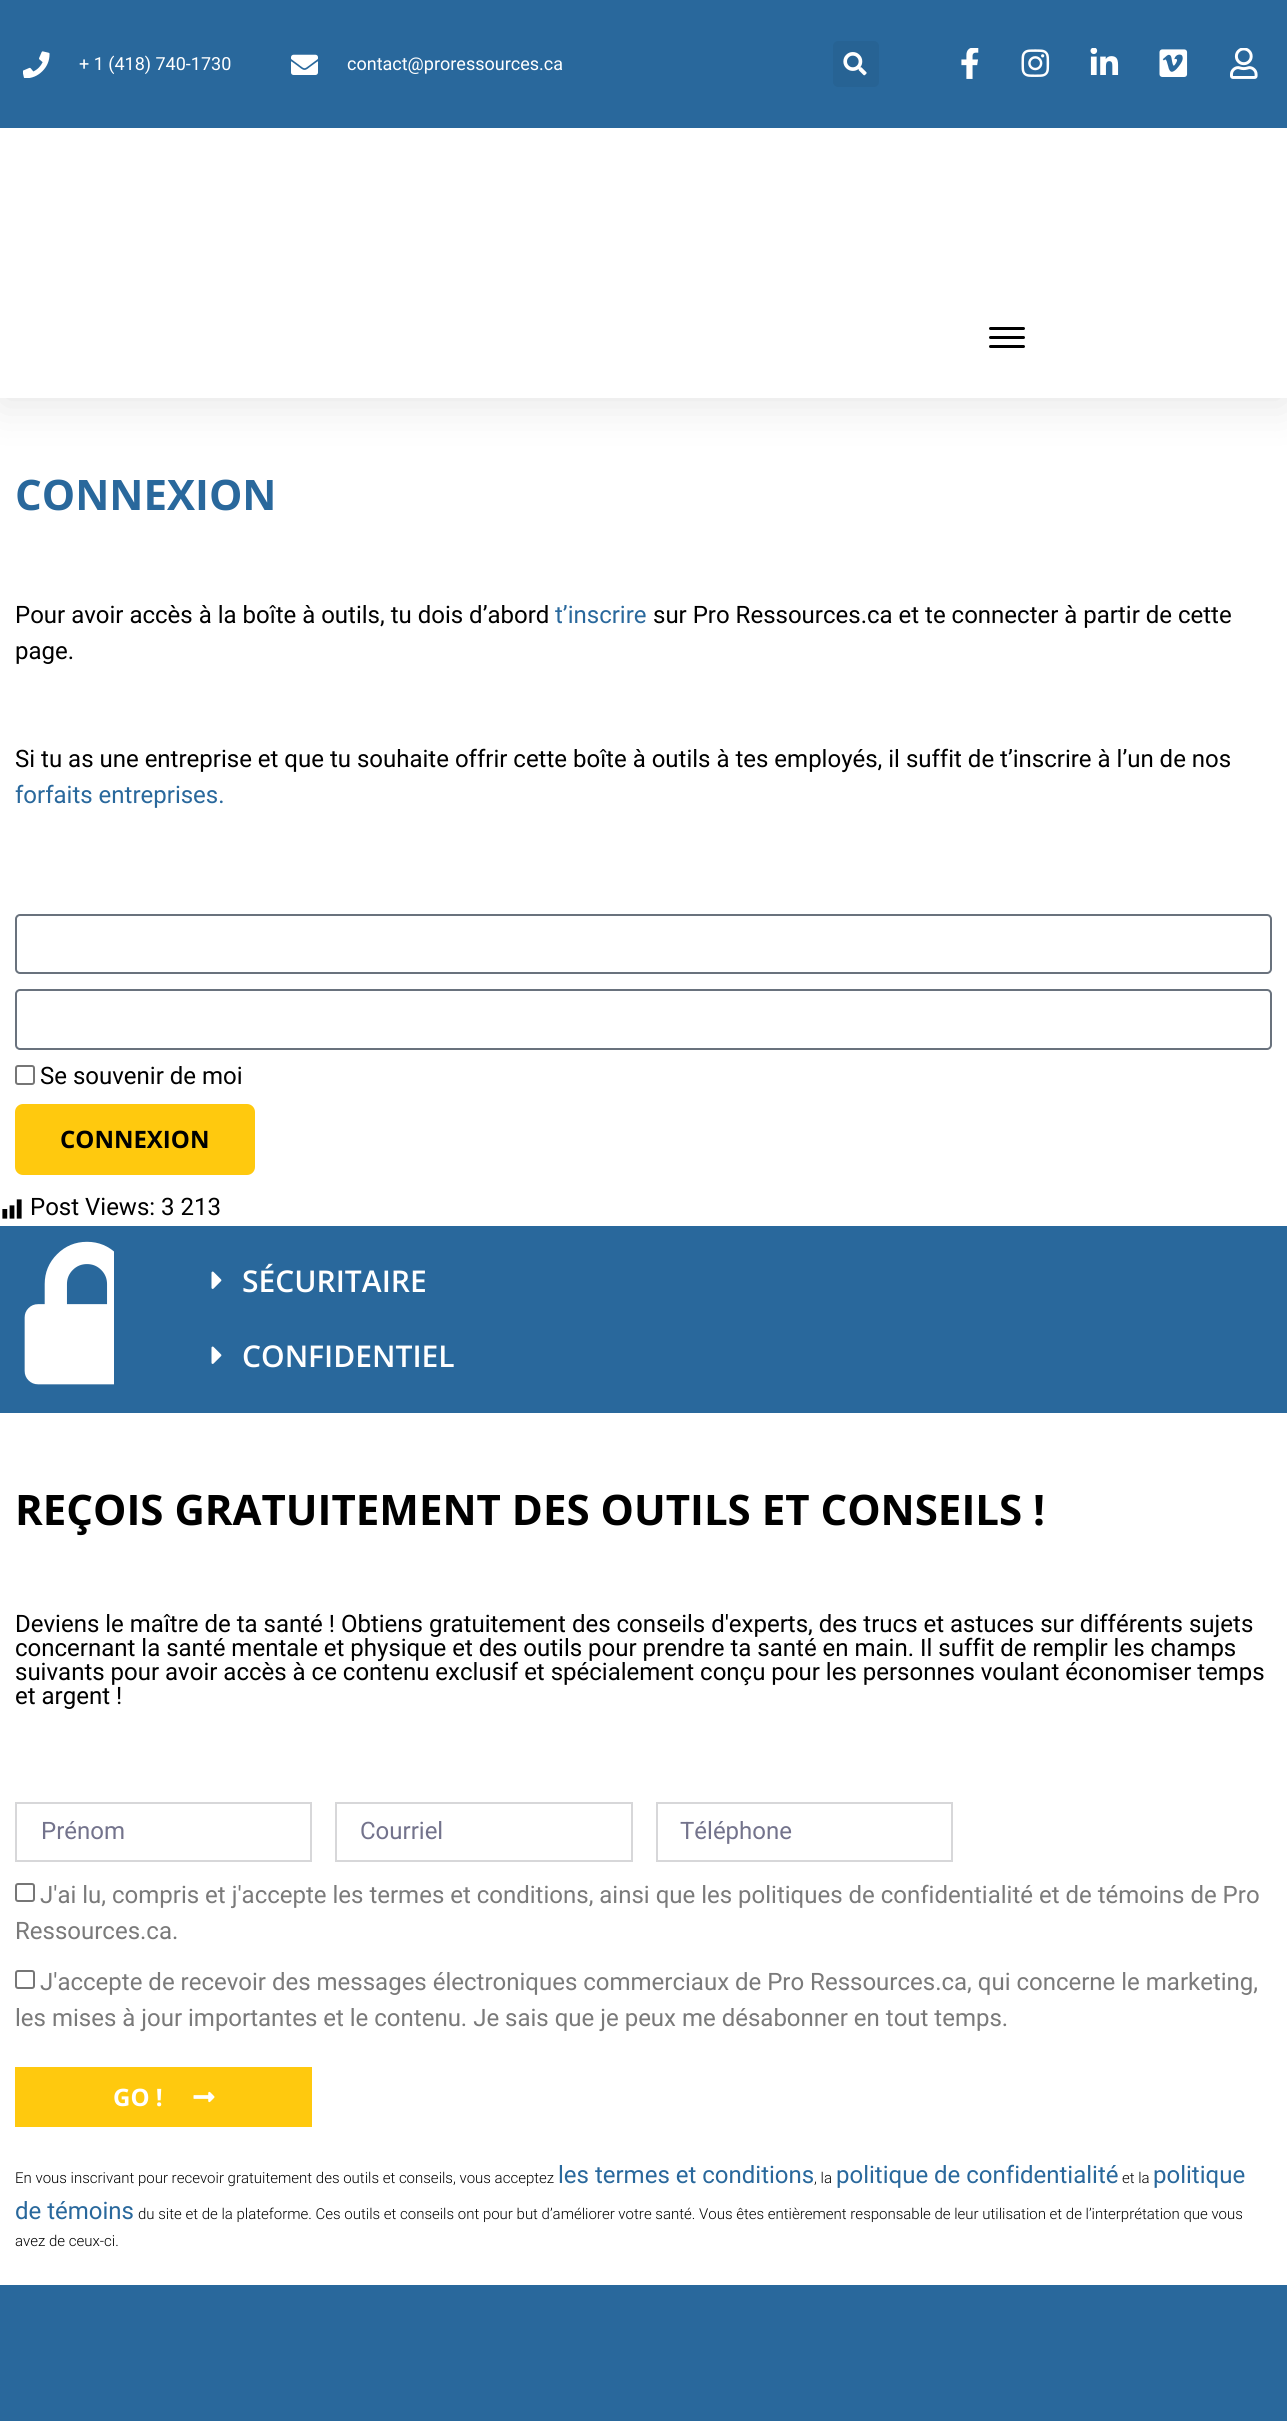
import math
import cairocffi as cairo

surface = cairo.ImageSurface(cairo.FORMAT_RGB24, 1287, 2421)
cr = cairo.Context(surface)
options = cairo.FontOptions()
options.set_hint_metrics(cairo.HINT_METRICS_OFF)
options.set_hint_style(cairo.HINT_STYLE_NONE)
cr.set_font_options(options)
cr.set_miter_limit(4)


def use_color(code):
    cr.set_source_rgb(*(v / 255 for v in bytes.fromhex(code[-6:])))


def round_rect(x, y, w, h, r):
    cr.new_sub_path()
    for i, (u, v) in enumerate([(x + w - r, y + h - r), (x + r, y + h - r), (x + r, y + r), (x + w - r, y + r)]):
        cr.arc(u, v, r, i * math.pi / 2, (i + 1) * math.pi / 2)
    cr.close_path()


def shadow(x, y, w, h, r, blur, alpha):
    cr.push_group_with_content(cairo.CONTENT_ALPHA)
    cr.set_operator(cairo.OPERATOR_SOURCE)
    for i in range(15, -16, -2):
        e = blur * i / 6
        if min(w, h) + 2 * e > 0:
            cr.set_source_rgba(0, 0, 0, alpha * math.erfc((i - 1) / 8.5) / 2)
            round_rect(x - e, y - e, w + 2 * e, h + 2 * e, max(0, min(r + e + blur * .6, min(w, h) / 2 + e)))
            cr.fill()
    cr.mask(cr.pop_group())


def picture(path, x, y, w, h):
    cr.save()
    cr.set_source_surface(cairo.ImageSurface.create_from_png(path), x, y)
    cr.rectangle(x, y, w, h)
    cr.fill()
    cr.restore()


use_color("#ffffff")
cr.paint()
use_color("#000000")
shadow(0, 8, 1287, 397, 0, 22.5, 0.1)
use_color("#29689c")
cr.rectangle(0, 0, 1287, 128)
cr.fill()
picture("img1.png", 23, 51, 27, 27)
cr.select_font_face("Roboto")
cr.set_font_size(18)
use_color("#ffffff")
cr.move_to(79, 70)
cr.show_text("+ 1 (418) 740-1730")
picture("img2.png", 291, 54, 27, 21)
cr.move_to(347, 70)
cr.show_text("contact@proressources.ca")
use_color("#276394")
round_rect(833, 41, 46, 46, 5)
cr.fill()
picture("img3.png", 843, 52, 24, 24)
picture("img4.png", 961, 48, 18, 31)
picture("img5.png", 1021, 49, 29, 28)
picture("img6.png", 1090, 48, 29, 27)
picture("img7.png", 1159, 49, 29, 28)
picture("img8.png", 1230, 48, 28, 31)
use_color("#ffffff")
cr.rectangle(0, 128, 1287, 270)
cr.fill()
use_color("#000000")
round_rect(989, 327, 36, 3, 1.5)
cr.fill()
round_rect(989, 336, 36, 3, 1.5)
cr.fill()
round_rect(989, 345, 36, 3, 1.5)
cr.fill()
cr.select_font_face("Open Sans", cairo.FONT_SLANT_NORMAL, cairo.FONT_WEIGHT_BOLD)
cr.set_font_size(42)
use_color("#29689c")
cr.move_to(15, 510)
cr.show_text("CONNEXION")
cr.select_font_face("Roboto")
cr.set_font_size(24)
use_color("#000000")
cr.move_to(15, 623)
cr.show_text("Pour avoir accès à la boîte à outils, tu dois d’abord")
use_color("#29689c")
cr.move_to(555, 623)
cr.show_text("t’inscrire")
use_color("#000000")
cr.move_to(653, 623)
cr.show_text("sur Pro Ressources.ca et te connecter à partir de cette")
cr.move_to(15, 659)
cr.show_text("page.")
cr.move_to(15, 767)
cr.show_text("Si tu as une entreprise et que tu souhaite offrir cette boîte à outils à tes employés, il suffit de t’inscrire à l’un de nos")
use_color("#29689c")
cr.move_to(15, 803)
cr.show_text("forfaits entreprises.")
round_rect(16, 915, 1255, 58, 4)
use_color("#69727d")
cr.stroke()
round_rect(16, 990, 1255, 59, 4)
cr.stroke()
round_rect(16, 1066, 18, 18, 2)
use_color("#767676")
cr.stroke()
use_color("#000000")
cr.move_to(40, 1084)
cr.show_text("Se souvenir de moi")
use_color("#ffc90e")
round_rect(15, 1104, 240, 71, 8)
cr.fill()
cr.select_font_face("Open Sans", cairo.FONT_SLANT_NORMAL, cairo.FONT_WEIGHT_BOLD)
use_color("#000000")
cr.move_to(60, 1148)
cr.show_text("CONNEXION")
picture("img9.png", 2, 1199, 20, 20)
cr.select_font_face("Roboto")
cr.move_to(30, 1215)
cr.show_text("Post Views: 3 213")
use_color("#29689c")
cr.rectangle(0, 1226, 1287, 187)
cr.fill()
picture("img10.png", 24, 1241, 90, 144)
picture("img11.png", 211, 1271, 11, 18)
cr.select_font_face("Open Sans SemiBold")
cr.set_font_size(30)
use_color("#ffffff")
cr.move_to(242, 1292)
cr.show_text("SÉCURITAIRE")
picture("img11.png", 211, 1346, 11, 18)
cr.move_to(242, 1367)
cr.show_text("CONFIDENTIEL")
cr.select_font_face("Open Sans", cairo.FONT_SLANT_NORMAL, cairo.FONT_WEIGHT_BOLD)
cr.set_font_size(42)
use_color("#000000")
cr.move_to(15, 1525)
cr.show_text("REÇOIS GRATUITEMENT DES OUTILS ET CONSEILS !")
cr.select_font_face("Roboto")
cr.set_font_size(24)
cr.move_to(15, 1632)
cr.show_text("Deviens le maître de ta santé ! Obtiens gratuitement des conseils d'experts, des trucs et astuces sur différents sujets")
cr.move_to(15, 1656)
cr.show_text("concernant la santé mentale et physique et des outils pour prendre ta santé en main. Il suffit de remplir les champs")
cr.move_to(15, 1680)
cr.show_text("suivants pour avoir accès à ce contenu exclusif et spécialement conçu pour les personnes voulant économiser temps")
cr.move_to(15, 1704)
cr.show_text("et argent !")
cr.rectangle(16, 1803, 295, 58)
use_color("#d7d7d9")
cr.stroke()
use_color("#73738c")
cr.move_to(41, 1839)
cr.show_text("Prénom")
cr.rectangle(336, 1803, 296, 58)
use_color("#d7d7d9")
cr.stroke()
use_color("#73738c")
cr.move_to(360, 1839)
cr.show_text("Courriel")
cr.rectangle(657, 1803, 295, 58)
use_color("#d7d7d9")
cr.stroke()
use_color("#73738c")
cr.move_to(680, 1839)
cr.show_text("Téléphone")
round_rect(16, 1884, 18, 17, 2)
use_color("#767676")
cr.stroke()
use_color("#7a7a7a")
cr.move_to(40, 1903)
cr.show_text("J'ai lu, compris et j'accepte les termes et conditions, ainsi que les politiques de confidentialité et de témoins de Pro")
cr.move_to(15, 1939)
cr.show_text("Ressources.ca.")
round_rect(16, 1971, 18, 17, 2)
use_color("#767676")
cr.stroke()
use_color("#7a7a7a")
cr.move_to(40, 1990)
cr.show_text("J'accepte de recevoir des messages électroniques commerciaux de Pro Ressources.ca, qui concerne le marketing,")
cr.move_to(15, 2026)
cr.show_text("les mises à jour importantes et le contenu. Je sais que je peux me désabonner en tout temps.")
use_color("#ffc90e")
cr.rectangle(15, 2067, 297, 60)
cr.fill()
cr.select_font_face("Open Sans", cairo.FONT_SLANT_NORMAL, cairo.FONT_WEIGHT_BOLD)
use_color("#ffffff")
cr.move_to(113, 2106)
cr.show_text("GO !")
picture("img12.png", 193, 2091, 22, 12)
cr.select_font_face("Roboto Light")
cr.set_font_size(15)
use_color("#000000")
cr.move_to(15, 2183)
cr.show_text("En vous inscrivant pour recevoir gratuitement des outils et conseils, vous acceptez")
cr.select_font_face("Roboto")
cr.set_font_size(24)
use_color("#29689c")
cr.move_to(558, 2183)
cr.show_text("les termes et conditions")
cr.select_font_face("Roboto Light")
cr.set_font_size(15)
use_color("#000000")
cr.move_to(814, 2183)
cr.show_text(", la")
cr.select_font_face("Roboto")
cr.set_font_size(24)
use_color("#29689c")
cr.move_to(836, 2183)
cr.show_text("politique de confidentialité")
cr.select_font_face("Roboto Light")
cr.set_font_size(15)
use_color("#000000")
cr.move_to(1122, 2183)
cr.show_text("et la")
cr.select_font_face("Roboto")
cr.set_font_size(24)
use_color("#29689c")
cr.move_to(1153, 2183)
cr.show_text("politique")
cr.move_to(15, 2219)
cr.show_text("de témoins")
cr.select_font_face("Roboto Light")
cr.set_font_size(15)
use_color("#000000")
cr.move_to(138, 2219)
cr.show_text("du site et de la plateforme. Ces outils et conseils ont pour but d’améliorer votre santé. Vous êtes entièrement responsable de leur utilisation et de l’interprétation que vous")
cr.move_to(15, 2246)
cr.show_text("avez de ceux-ci.")
use_color("#29689c")
cr.rectangle(0, 2285, 1287, 136)
cr.fill()
surface.write_to_png("result.png")
